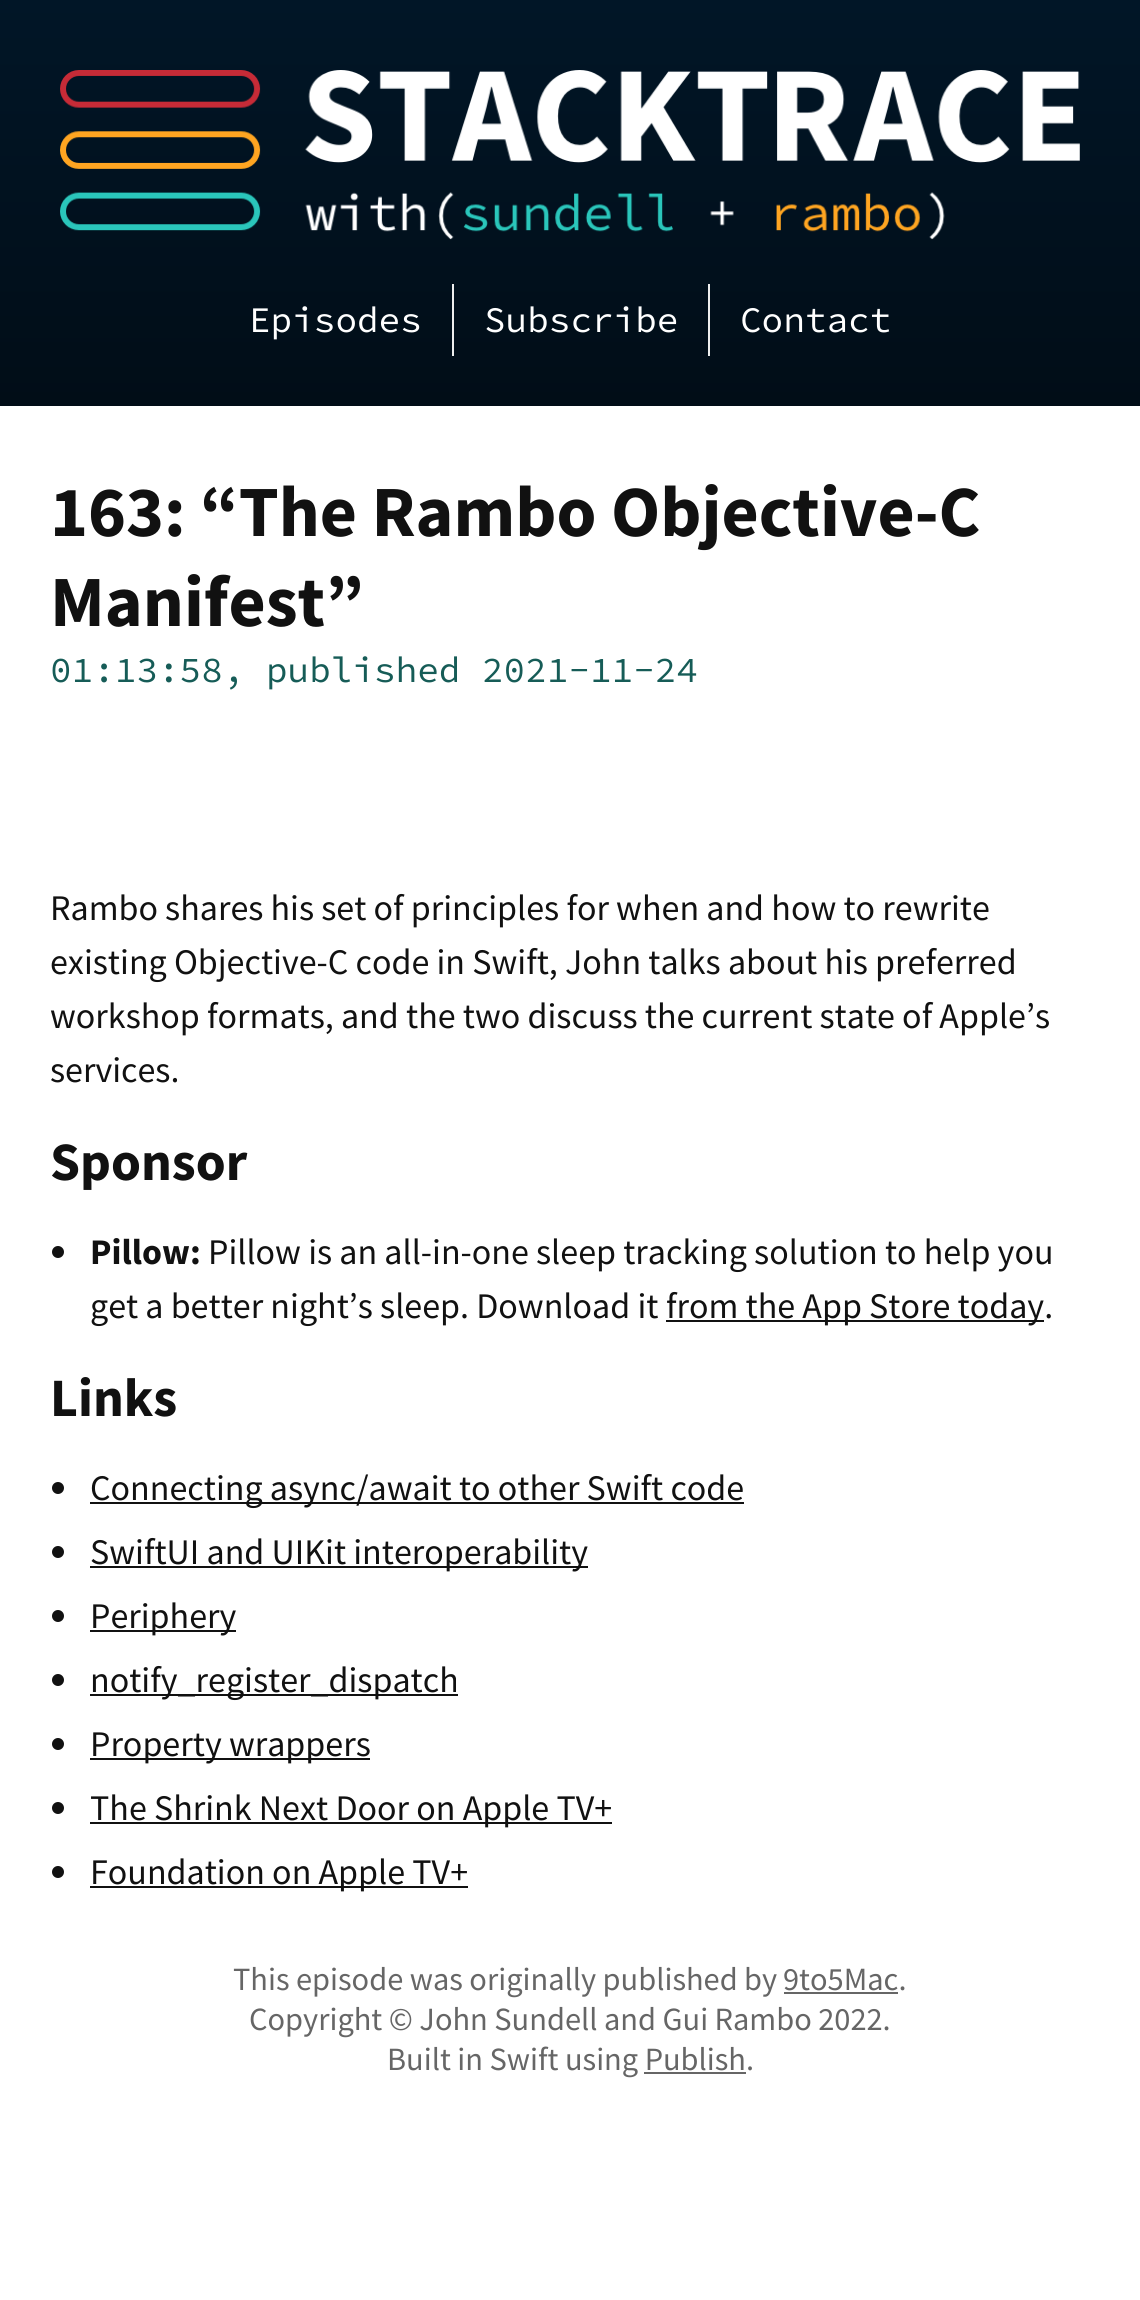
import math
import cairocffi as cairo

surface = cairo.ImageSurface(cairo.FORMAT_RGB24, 1140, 2300)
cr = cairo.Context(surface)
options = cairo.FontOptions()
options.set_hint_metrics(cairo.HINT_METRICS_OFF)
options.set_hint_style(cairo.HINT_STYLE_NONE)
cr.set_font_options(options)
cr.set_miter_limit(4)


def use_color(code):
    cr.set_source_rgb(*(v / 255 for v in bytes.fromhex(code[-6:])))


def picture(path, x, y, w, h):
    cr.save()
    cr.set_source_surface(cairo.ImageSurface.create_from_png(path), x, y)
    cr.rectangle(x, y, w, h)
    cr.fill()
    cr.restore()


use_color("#ffffff")
cr.paint()
gradient = cairo.LinearGradient(570, 0, 570, 406)
gradient.add_color_stop_rgba(0, 0.004, 0.086, 0.153, 1)
gradient.add_color_stop_rgba(1, 0.004, 0.051, 0.09, 1)
cr.set_source(gradient)
cr.rectangle(0, 0, 1140, 406)
cr.fill()
picture("img1.png", 60, 70, 1020, 170)
cr.select_font_face("Source Code Pro")
cr.set_font_size(36)
use_color("#ffffff")
cr.move_to(249, 332)
cr.show_text("Episodes")
use_color("#eeeeee")
cr.rectangle(452, 284, 2, 72)
cr.fill()
use_color("#ffffff")
cr.move_to(484, 332)
cr.show_text("Subscribe")
use_color("#eeeeee")
cr.rectangle(708, 284, 2, 72)
cr.fill()
use_color("#ffffff")
cr.move_to(740, 332)
cr.show_text("Contact")
cr.select_font_face("Source Sans Pro", cairo.FONT_SLANT_NORMAL, cairo.FONT_WEIGHT_BOLD)
cr.set_font_size(72)
use_color("#111111")
cr.move_to(50, 536)
cr.show_text("163: “The Rambo Objective-C")
cr.move_to(50, 626)
cr.show_text("Manifest”")
cr.select_font_face("Source Code Pro")
cr.set_font_size(36)
use_color("#165c57")
cr.move_to(50, 682)
cr.show_text("01:13:58, published 2021-11-24")
cr.select_font_face("Source Sans Pro")
use_color("#111111")
cr.move_to(50, 920)
cr.show_text("Rambo shares his set of principles for when and how to rewrite")
cr.move_to(50, 974)
cr.show_text("existing Objective-C code in Swift, John talks about his preferred")
cr.move_to(50, 1028)
cr.show_text("workshop formats, and the two discuss the current state of Apple’s")
cr.move_to(50, 1082)
cr.show_text("services.")
cr.select_font_face("Source Sans Pro", cairo.FONT_SLANT_NORMAL, cairo.FONT_WEIGHT_BOLD)
cr.set_font_size(54)
cr.move_to(50, 1180)
cr.show_text("Sponsor")
cr.new_path()
cr.arc(58, 1252, 6, 0, 2 * math.pi)
cr.fill()
cr.set_font_size(36)
cr.move_to(90, 1264)
cr.show_text("Pillow:")
cr.select_font_face("Source Sans Pro")
cr.move_to(208, 1264)
cr.show_text("Pillow is an all-in-one sleep tracking solution to help you")
cr.move_to(90, 1318)
cr.show_text("get a better night’s sleep. Download it")
cr.rectangle(666, 1320, 378, 2)
cr.fill()
cr.move_to(666, 1318)
cr.show_text("from the App Store today.")
cr.select_font_face("Source Sans Pro", cairo.FONT_SLANT_NORMAL, cairo.FONT_WEIGHT_BOLD)
cr.set_font_size(54)
cr.move_to(50, 1416)
cr.show_text("Links")
cr.new_path()
cr.arc(58, 1488, 6, 0, 2 * math.pi)
cr.fill()
cr.rectangle(90, 1502, 654, 2)
cr.fill()
cr.select_font_face("Source Sans Pro")
cr.set_font_size(36)
cr.move_to(90, 1500)
cr.show_text("Connecting async/await to other Swift code")
cr.new_path()
cr.arc(58, 1552, 6, 0, 2 * math.pi)
cr.fill()
cr.rectangle(90, 1566, 498, 2)
cr.fill()
cr.move_to(90, 1564)
cr.show_text("SwiftUI and UIKit interoperability")
cr.new_path()
cr.arc(58, 1616, 6, 0, 2 * math.pi)
cr.fill()
cr.rectangle(90, 1630, 146, 2)
cr.fill()
cr.move_to(90, 1628)
cr.show_text("Periphery")
cr.new_path()
cr.arc(58, 1680, 6, 0, 2 * math.pi)
cr.fill()
cr.rectangle(90, 1694, 368, 2)
cr.fill()
cr.move_to(90, 1692)
cr.show_text("notify_register_dispatch")
cr.new_path()
cr.arc(58, 1744, 6, 0, 2 * math.pi)
cr.fill()
cr.rectangle(90, 1758, 280, 2)
cr.fill()
cr.move_to(90, 1756)
cr.show_text("Property wrappers")
cr.new_path()
cr.arc(58, 1808, 6, 0, 2 * math.pi)
cr.fill()
cr.rectangle(90, 1822, 522, 2)
cr.fill()
cr.move_to(90, 1820)
cr.show_text("The Shrink Next Door on Apple TV+")
cr.new_path()
cr.arc(58, 1872, 6, 0, 2 * math.pi)
cr.fill()
cr.rectangle(90, 1886, 378, 2)
cr.fill()
cr.move_to(90, 1884)
cr.show_text("Foundation on Apple TV+")
cr.set_font_size(32.4)
use_color("#666666")
cr.move_to(233, 1990)
cr.show_text("This episode was originally published by")
cr.move_to(783, 1990)
cr.show_text("9to5Mac.")
cr.rectangle(784, 1992, 114, 2)
cr.fill()
cr.move_to(249, 2030)
cr.show_text("Copyright © John Sundell and Gui Rambo 2022.")
cr.move_to(387, 2070)
cr.show_text("Built in Swift using Publish.")
cr.rectangle(644, 2072, 102, 2)
cr.fill()
surface.write_to_png("result.png")
